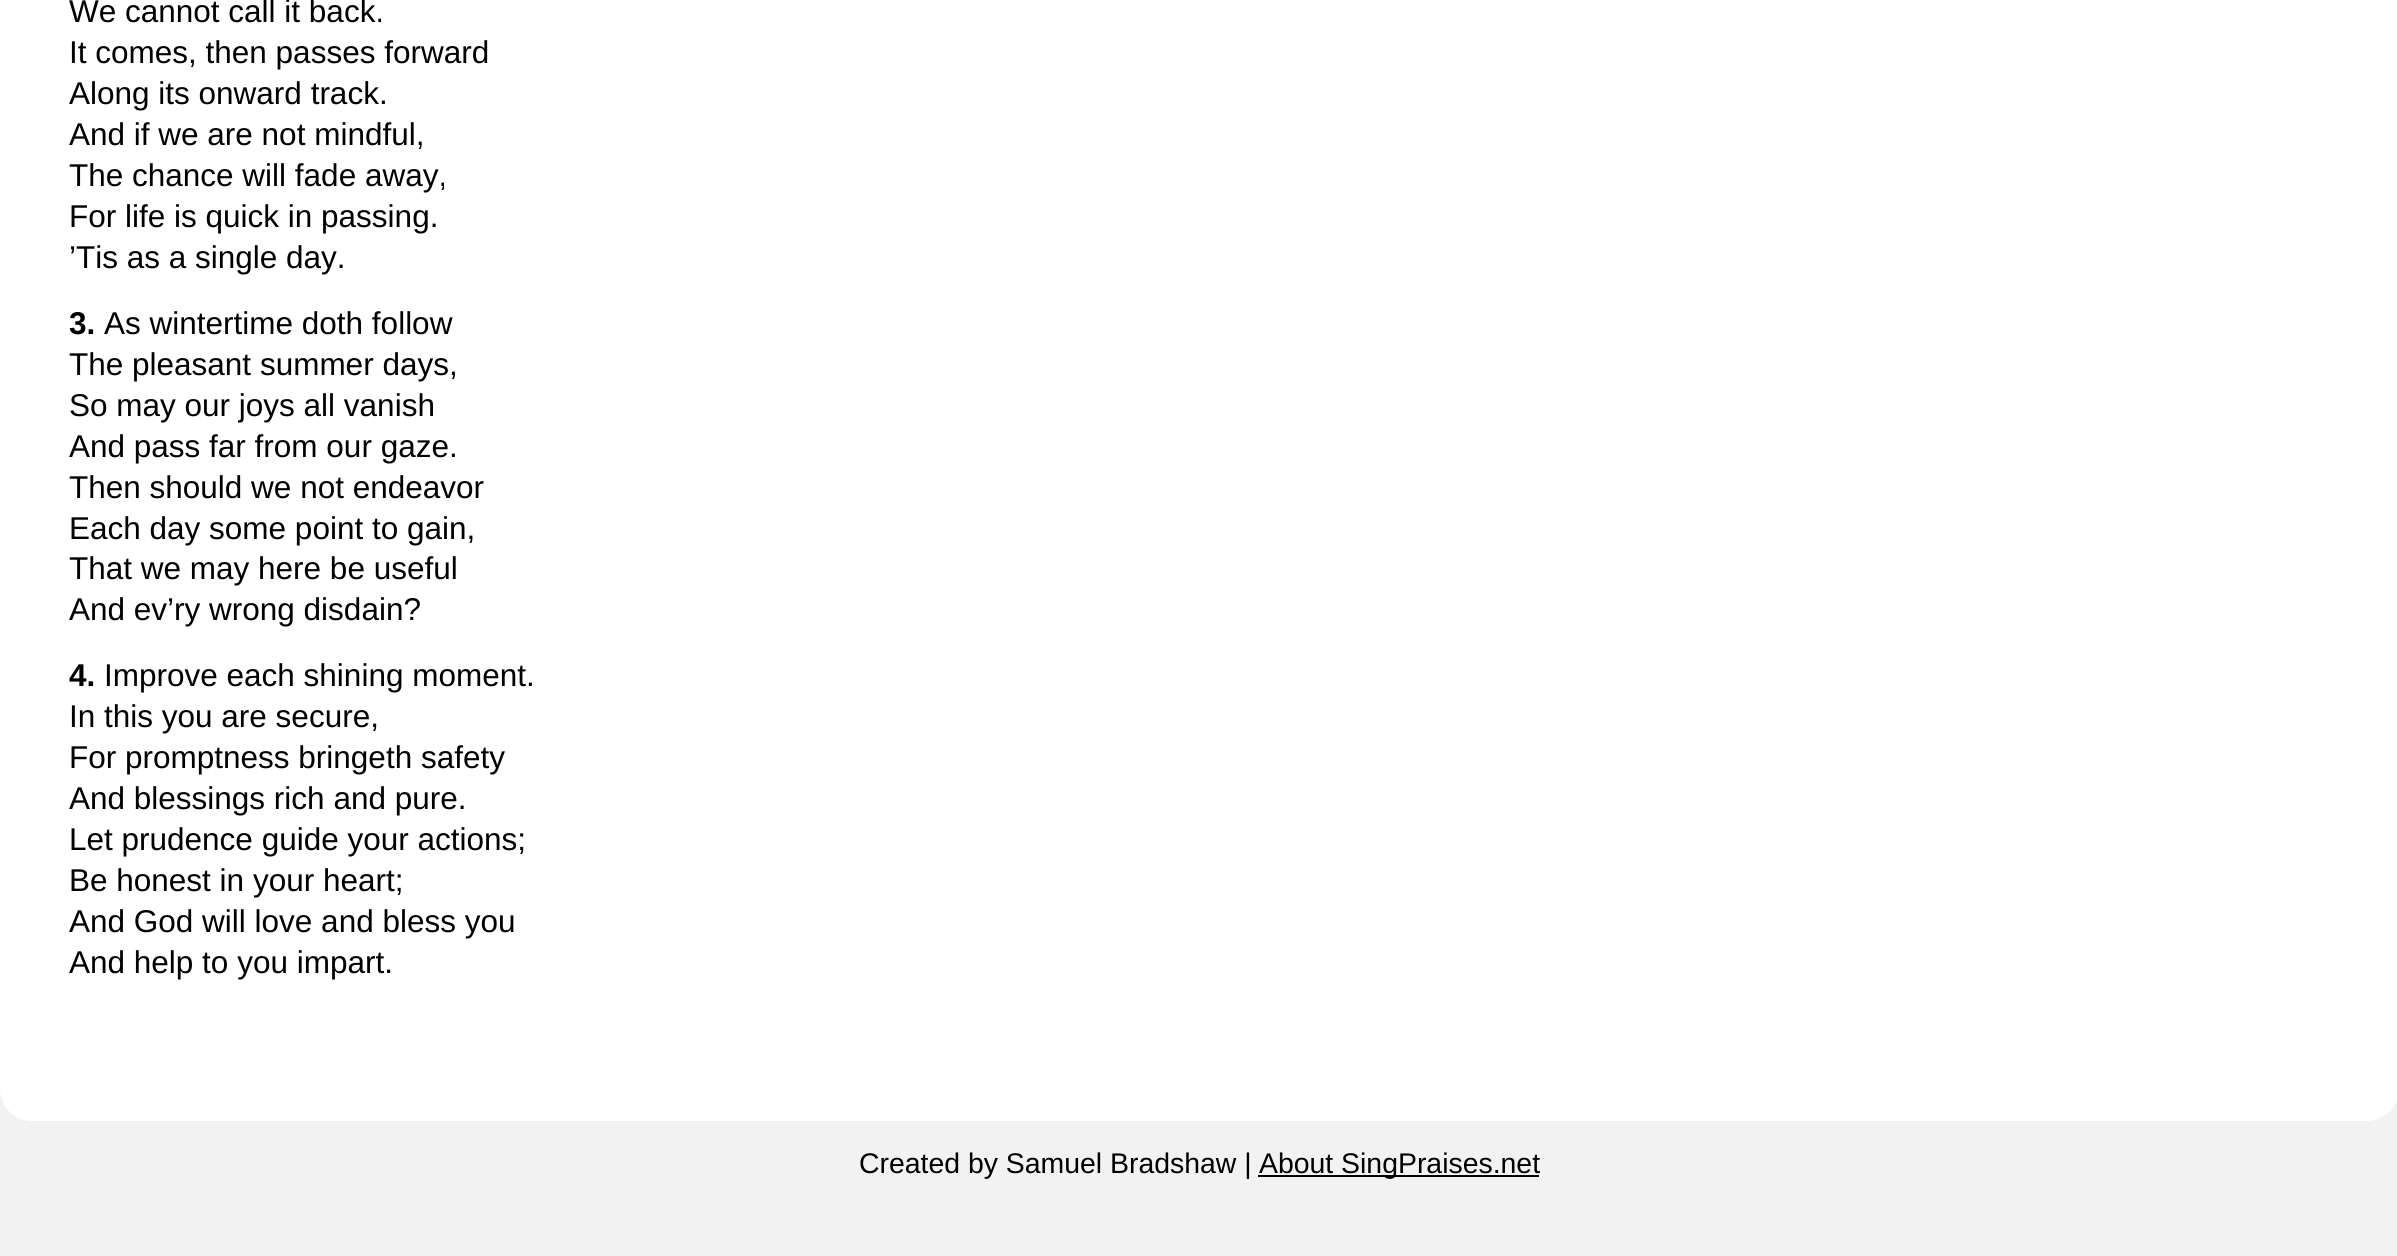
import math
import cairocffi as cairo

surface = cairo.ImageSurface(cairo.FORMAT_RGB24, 2397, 1256)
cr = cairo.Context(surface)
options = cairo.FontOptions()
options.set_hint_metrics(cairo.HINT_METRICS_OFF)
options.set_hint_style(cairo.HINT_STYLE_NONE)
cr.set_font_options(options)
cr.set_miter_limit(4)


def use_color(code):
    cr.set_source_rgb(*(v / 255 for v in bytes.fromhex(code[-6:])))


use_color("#f2f2f2")
cr.paint()
use_color("#ffffff")
cr.new_path()
cr.move_to(0, -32)
cr.line_to(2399, -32)
cr.line_to(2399, 1089)
cr.curve_to(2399, 1106.5, 2384.5, 1121, 2367, 1121)
cr.line_to(32, 1121)
cr.curve_to(14.5, 1121, 0, 1106.5, 0, 1089)
cr.close_path()
cr.fill()
cr.select_font_face("Liberation Sans")
cr.set_font_size(31.5)
use_color("#000000")
cr.move_to(69, 22)
cr.show_text("We cannot call it back.")
cr.move_to(69, 63)
cr.show_text("It comes, then passes forward")
cr.move_to(69, 104)
cr.show_text("Along its onward track.")
cr.move_to(69, 145)
cr.show_text("And if we are not mindful,")
cr.move_to(69, 186)
cr.show_text("The chance will fade away,")
cr.move_to(69, 227)
cr.show_text("For life is quick in passing.")
cr.move_to(69, 268)
cr.show_text("’Tis as a single day.")
cr.select_font_face("Liberation Sans", cairo.FONT_SLANT_NORMAL, cairo.FONT_WEIGHT_BOLD)
cr.move_to(69, 334)
cr.show_text("3.")
cr.select_font_face("Liberation Sans")
cr.move_to(104, 334)
cr.show_text("As wintertime doth follow")
cr.move_to(69, 375)
cr.show_text("The pleasant summer days,")
cr.move_to(69, 416)
cr.show_text("So may our joys all vanish")
cr.move_to(69, 457)
cr.show_text("And pass far from our gaze.")
cr.move_to(69, 498)
cr.show_text("Then should we not endeavor")
cr.move_to(69, 539)
cr.show_text("Each day some point to gain,")
cr.move_to(69, 579)
cr.show_text("That we may here be useful")
cr.move_to(69, 620)
cr.show_text("And ev’ry wrong disdain?")
cr.select_font_face("Liberation Sans", cairo.FONT_SLANT_NORMAL, cairo.FONT_WEIGHT_BOLD)
cr.move_to(69, 686)
cr.show_text("4.")
cr.select_font_face("Liberation Sans")
cr.move_to(104, 686)
cr.show_text("Improve each shining moment.")
cr.move_to(69, 727)
cr.show_text("In this you are secure,")
cr.move_to(69, 768)
cr.show_text("For promptness bringeth safety")
cr.move_to(69, 809)
cr.show_text("And blessings rich and pure.")
cr.move_to(69, 850)
cr.show_text("Let prudence guide your actions;")
cr.move_to(69, 891)
cr.show_text("Be honest in your heart;")
cr.move_to(69, 932)
cr.show_text("And God will love and bless you")
cr.move_to(69, 973)
cr.show_text("And help to you impart.")
cr.set_font_size(28.4)
cr.move_to(859, 1173)
cr.show_text("Created by Samuel Bradshaw |")
cr.rectangle(1258, 1175, 281, 2)
cr.fill()
cr.move_to(1259, 1173)
cr.show_text("About SingPraises.net")
surface.write_to_png("result.png")
